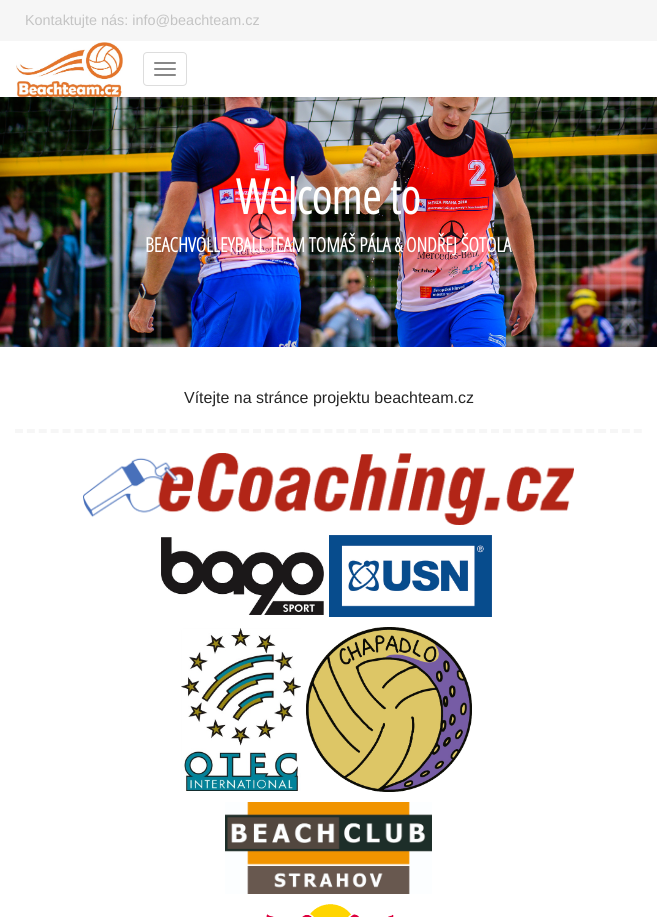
import math
import cairocffi as cairo

surface = cairo.ImageSurface(cairo.FORMAT_RGB24, 657, 917)
cr = cairo.Context(surface)
options = cairo.FontOptions()
options.set_hint_metrics(cairo.HINT_METRICS_OFF)
options.set_hint_style(cairo.HINT_STYLE_NONE)
cr.set_font_options(options)
cr.set_miter_limit(4)


def use_color(code):
    cr.set_source_rgb(*(v / 255 for v in bytes.fromhex(code[-6:])))


def round_rect(x, y, w, h, r):
    cr.new_sub_path()
    for i, (u, v) in enumerate([(x + w - r, y + h - r), (x + r, y + h - r), (x + r, y + r), (x + w - r, y + r)]):
        cr.arc(u, v, r, i * math.pi / 2, (i + 1) * math.pi / 2)
    cr.close_path()


def picture(path, x, y, w, h):
    cr.save()
    cr.set_source_surface(cairo.ImageSurface.create_from_png(path), x, y)
    cr.rectangle(x, y, w, h)
    cr.fill()
    cr.restore()


use_color("#ffffff")
cr.paint()
use_color("#f6f6f6")
cr.rectangle(0, 0, 657, 41)
cr.fill()
cr.select_font_face("Liberation Sans")
cr.set_font_size(14.4)
use_color("#c4c4c4")
cr.move_to(25, 25)
cr.show_text("Kontaktujte nás: info@beachteam.cz")
picture("img1.png", 16, 42, 107, 55)
round_rect(143.5, 52.5, 43, 33, 3.5)
use_color("#dddddd")
cr.set_line_width(1)
cr.stroke()
use_color("#888888")
round_rect(154, 62, 22, 2, 1)
cr.fill()
round_rect(154, 68, 22, 2, 1)
cr.fill()
round_rect(154, 74, 22, 2, 1)
cr.fill()
picture("img2.png", 0, 97, 657, 250)
cr.select_font_face("Open Sans", cairo.FONT_SLANT_NORMAL, cairo.FONT_WEIGHT_BOLD)
cr.set_font_size(48)
use_color("#ffffff")
cr.move_to(236, 214)
cr.show_text("Welcome to")
cr.set_font_size(20)
cr.move_to(145, 252)
cr.show_text("BEACHVOLLEYBALL TEAM TOMÁŠ PÁLA & ONDŘEJ ŠOTOLA")
cr.select_font_face("Liberation Sans")
cr.set_font_size(16)
use_color("#252525")
cr.move_to(184, 403)
cr.show_text("Vítejte na stránce projektu beachteam.cz")
cr.new_path()
cr.move_to(15, 431)
cr.line_to(642, 431)
use_color("#f6f6f6")
cr.set_line_width(4)
cr.set_dash([8, 3.9])
cr.stroke()
picture("img3.png", 83, 453, 491, 72)
picture("img4.png", 161, 537, 163, 78)
picture("img5.png", 329, 535, 163, 82)
picture("img6.png", 181, 628, 120, 163)
picture("img7.png", 306, 627, 166, 165)
picture("img8.png", 225, 802, 207, 92)
picture("img9.png", 266, 904, 128, 13)
surface.write_to_png("result.png")
